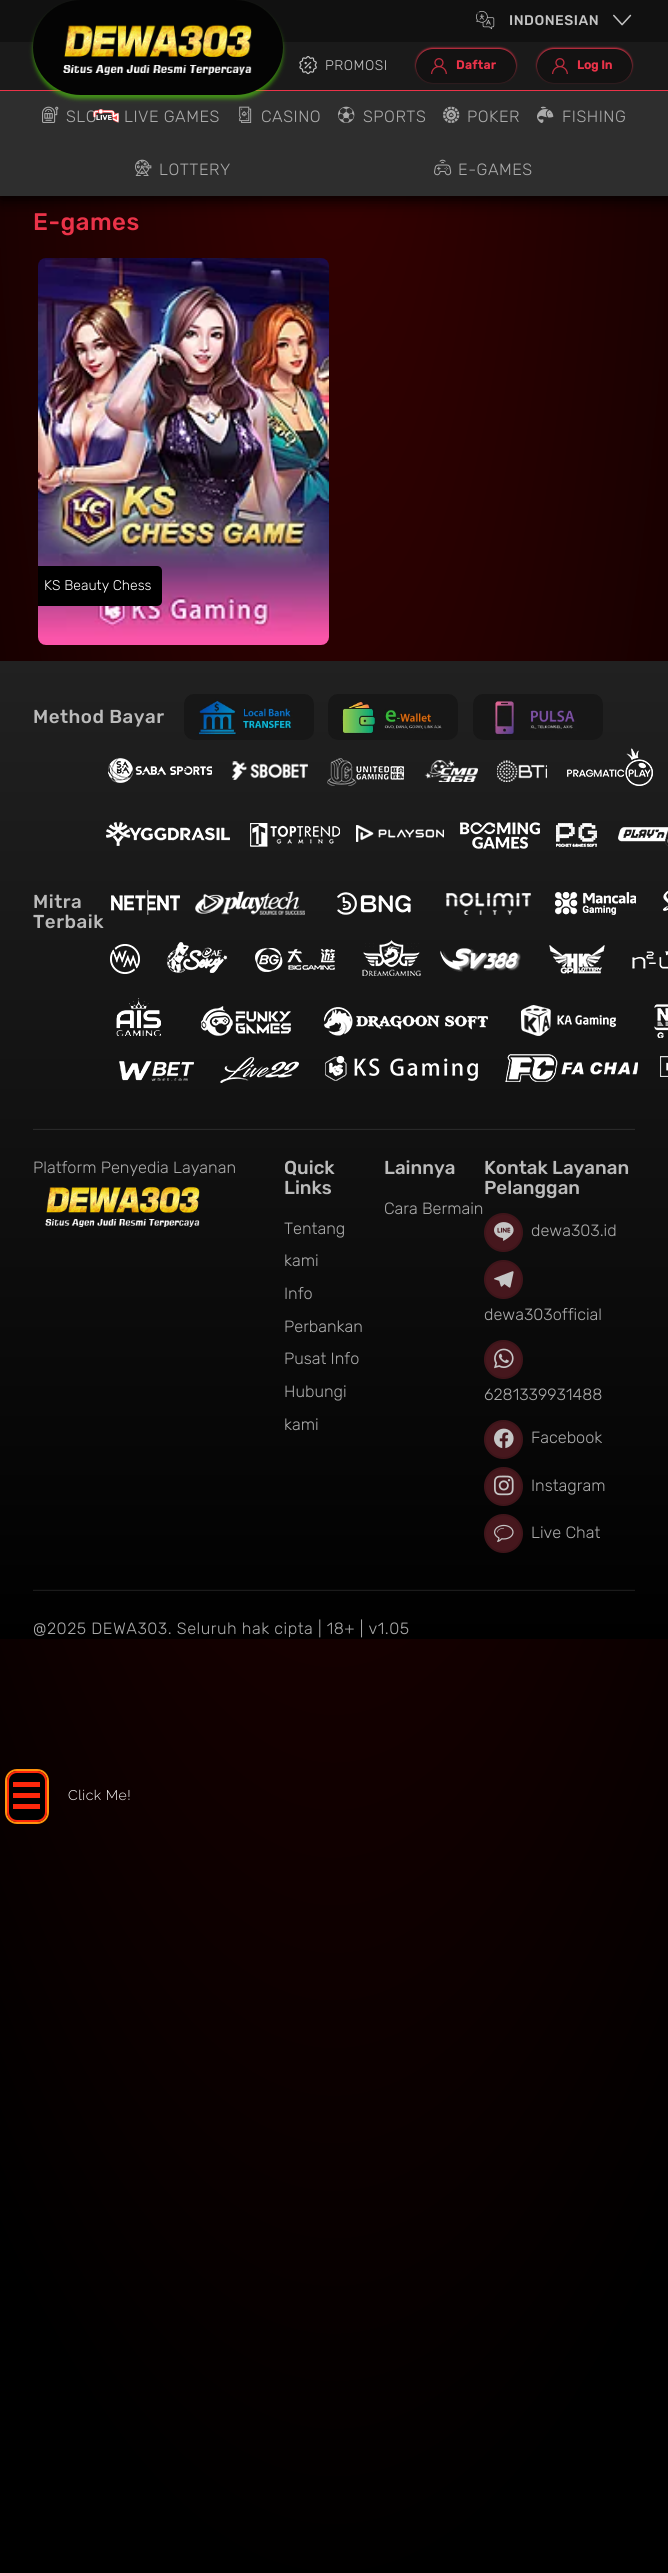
import math
import cairocffi as cairo

surface = cairo.ImageSurface(cairo.FORMAT_RGB24, 668, 2573)
cr = cairo.Context(surface)
options = cairo.FontOptions()
options.set_hint_metrics(cairo.HINT_METRICS_OFF)
options.set_hint_style(cairo.HINT_STYLE_NONE)
cr.set_font_options(options)
cr.set_miter_limit(4)


def use_color(code):
    cr.set_source_rgb(*(v / 255 for v in bytes.fromhex(code[-6:])))


def spaced_text(x, y, s, letter, word):
    cr.move_to(x, y)
    for ch in s:
        cr.show_text(ch)
        cr.rel_move_to(letter + word * (ch == ' '), 0)


def round_rect(x, y, w, h, r):
    cr.new_sub_path()
    for i, (u, v) in enumerate([(x + w - r, y + h - r), (x + r, y + h - r), (x + r, y + r), (x + w - r, y + r)]):
        cr.arc(u, v, r, i * math.pi / 2, (i + 1) * math.pi / 2)
    cr.close_path()


def shadow(x, y, w, h, r, blur, alpha):
    cr.push_group_with_content(cairo.CONTENT_ALPHA)
    cr.set_operator(cairo.OPERATOR_SOURCE)
    for i in range(15, -16, -2):
        e = blur * i / 6
        if min(w, h) + 2 * e > 0:
            cr.set_source_rgba(0, 0, 0, alpha * math.erfc((i - 1) / 8.5) / 2)
            round_rect(x - e, y - e, w + 2 * e, h + 2 * e, max(0, min(r + e + blur * .6, min(w, h) / 2 + e)))
            cr.fill()
    cr.mask(cr.pop_group())


def picture(path, x, y, w, h):
    cr.save()
    cr.set_source_surface(cairo.ImageSurface.create_from_png(path), x, y)
    cr.rectangle(x, y, w, h)
    cr.fill()
    cr.restore()


use_color("#ffffff")
cr.paint()
gradient = cairo.RadialGradient(0, 0, 0, 0, 0, 1)
gradient.set_matrix(cairo.Matrix(1 / 668, 0, 0, 1 / 2573, -1 * 334 / 668, -1 * 0 / 2573))
gradient.add_color_stop_rgba(0, 0.216, 0.004, 0.004, 1)
gradient.add_color_stop_rgba(1, 0, 0, 0, 1)
cr.set_source(gradient)
cr.rectangle(0, 196, 668, 2377)
cr.fill()
use_color("#111111")
cr.rectangle(0, 0, 668, 42)
cr.fill()
use_color("#000000")
shadow(0, 94, 668, 106, 0, 8, 1)
use_color("#1a1a1a")
cr.rectangle(0, 42, 668, 48)
cr.fill()
use_color("#2e2e2e")
cr.rectangle(0, 91, 668, 105)
cr.fill()
use_color("#eb3349")
cr.rectangle(0, 90, 668, 1)
cr.fill()
use_color("#55f201")
shadow(33, 4, 250, 95, 47.5, 2, 0.5)
use_color("#040404")
round_rect(33, 0, 250, 95, 47.5)
cr.fill()
picture("img1.png", 63, 24, 189, 51)
picture("img2.png", 476, 10, 19, 20)
cr.select_font_face("Rubik Medium")
cr.set_font_size(14)
use_color("#c4c4c4")
spaced_text(509, 25, "INDONESIAN", 0.5, 0)
picture("img3.png", 613, 14, 19, 12)
picture("img4.png", 299, 56, 18, 19)
cr.select_font_face("Rubik Light")
spaced_text(325, 70, "PROMOSI", 0.5, 0)
use_color("#eb3349")
shadow(416, 48, 100, 34, 17, 1, 1)
use_color("#131212")
round_rect(416, 49, 100, 34, 17)
cr.fill()
picture("img5.png", 431, 58, 16, 16)
cr.select_font_face("Rubik", cairo.FONT_SLANT_NORMAL, cairo.FONT_WEIGHT_BOLD)
cr.set_font_size(12)
use_color("#eb3349")
spaced_text(456, 69, "Daftar", 0.5, 0)
use_color("#eb3349")
shadow(537, 48, 95, 34, 17, 1, 1)
use_color("#131212")
round_rect(537, 49, 95, 34, 17)
cr.fill()
picture("img5.png", 552, 58, 16, 16)
use_color("#eb3349")
cr.move_to(577, 69)
cr.show_text("Log In")
picture("img6.png", 42, 106, 17, 17)
cr.select_font_face("Rubik Light")
cr.set_font_size(16.3)
use_color("#ababab")
spaced_text(66, 122, "SLO", 0.5, 0)
picture("img7.png", 93, 109, 26, 14)
spaced_text(124, 122, "LIVE GAMES", 0.5, 0)
picture("img8.png", 239, 106, 13, 17)
spaced_text(261, 122, "CASINO", 0.5, 0)
picture("img9.png", 338, 106, 17, 17)
spaced_text(363, 122, "SPORTS", 0.5, 0)
picture("img10.png", 443, 106, 17, 17)
spaced_text(467, 122, "POKER", 0.5, 0)
picture("img11.png", 537, 106, 17, 17)
spaced_text(562, 122, "FISHING", 0.5, 0)
picture("img12.png", 135, 159, 17, 17)
spaced_text(159, 175, "LOTTERY", 0.5, 0)
picture("img13.png", 434, 159, 18, 17)
spaced_text(458, 175, "E-GAMES", 0.5, 0)
cr.select_font_face("Rubik Medium")
cr.set_font_size(24)
use_color("#eb3349")
spaced_text(33, 230, "E-games", 0.5, 0)
picture("img14.png", 38, 258, 291, 387)
use_color("#000000")
cr.new_path()
cr.move_to(38, 566)
cr.line_to(157, 566)
cr.curve_to(160, 566, 162, 568, 162, 571)
cr.line_to(162, 601)
cr.curve_to(162, 604, 160, 606, 157, 606)
cr.line_to(38, 606)
cr.close_path()
cr.fill()
cr.select_font_face("Rubik Light")
cr.set_font_size(14)
use_color("#ffffff")
cr.move_to(44, 590)
cr.show_text("KS Beauty Chess")
gradient = cairo.LinearGradient(334, 661, 334, 1639)
gradient.add_color_stop_rgba(0, 0.129, 0.129, 0.129, 1)
gradient.add_color_stop_rgba(1, 0, 0, 0, 1)
cr.set_source(gradient)
cr.rectangle(0, 661, 668, 978)
cr.fill()
cr.select_font_face("Rubik Medium")
cr.set_font_size(18.75)
use_color("#bbbbbb")
spaced_text(33, 723, "Method Bayar", 0.5, 0)
picture("img15.png", 184, 694, 130, 46)
picture("img16.png", 328, 694, 130, 46)
picture("img17.png", 473, 694, 130, 46)
spaced_text(33, 908, "Mitra", 0.5, 0)
spaced_text(33, 928, "Terbaik", 0.5, 0)
picture("img18.png", 106, 748, 562, 335)
use_color("#141414")
cr.rectangle(33, 1128, 602, 1)
cr.fill()
use_color("#292929")
cr.rectangle(33, 1129, 602, 1)
cr.fill()
cr.select_font_face("Rubik Light")
cr.set_font_size(16.3)
use_color("#ababab")
cr.move_to(33, 1173)
cr.show_text("Platform Penyedia Layanan")
picture("img19.png", 45, 1186, 155, 41)
cr.select_font_face("Rubik Medium")
cr.set_font_size(18.75)
use_color("#bbbbbb")
cr.move_to(284, 1174)
cr.show_text("Quick")
cr.move_to(284, 1194)
cr.show_text("Links")
cr.select_font_face("Rubik Light")
cr.set_font_size(16.3)
use_color("#ababab")
cr.move_to(284, 1234)
cr.show_text("Tentang")
cr.move_to(284, 1266)
cr.show_text("kami")
cr.move_to(284, 1299)
cr.show_text("Info")
cr.move_to(284, 1332)
cr.show_text("Perbankan")
cr.move_to(284, 1364)
cr.show_text("Pusat Info")
cr.move_to(284, 1397)
cr.show_text("Hubungi")
cr.move_to(284, 1430)
cr.show_text("kami")
cr.select_font_face("Rubik Medium")
cr.set_font_size(18.75)
use_color("#bbbbbb")
cr.move_to(384, 1174)
cr.show_text("Lainnya")
cr.select_font_face("Rubik Light")
cr.set_font_size(16.3)
use_color("#ababab")
cr.move_to(384, 1214)
cr.show_text("Cara Bermain")
cr.select_font_face("Rubik Medium")
cr.set_font_size(18.75)
use_color("#bbbbbb")
cr.move_to(484, 1174)
cr.show_text("Kontak Layanan")
cr.move_to(484, 1194)
cr.show_text("Pelanggan")
use_color("#46171d")
cr.new_path()
cr.arc(503.5, 1232.5, 19.5, 0, 2 * math.pi)
cr.fill()
cr.arc(503.5, 1232.5, 18.5, 0, 2 * math.pi)
cr.set_source_rgba(0, 0, 0, 0.1)
cr.stroke()
picture("img20.png", 494, 1222, 20, 19)
cr.select_font_face("Rubik Light")
cr.set_font_size(16.3)
use_color("#ababab")
cr.move_to(531, 1236)
cr.show_text("dewa303.id")
use_color("#46171d")
cr.new_path()
cr.arc(503.5, 1279.5, 19.5, 0, 2 * math.pi)
cr.fill()
cr.arc(503.5, 1279.5, 18.5, 0, 2 * math.pi)
cr.set_source_rgba(0, 0, 0, 0.1)
cr.stroke()
picture("img21.png", 494, 1271, 20, 17)
use_color("#ababab")
cr.move_to(484, 1320)
cr.show_text("dewa303official")
use_color("#46171d")
cr.new_path()
cr.arc(503.5, 1359.5, 19.5, 0, 2 * math.pi)
cr.fill()
cr.arc(503.5, 1359.5, 18.5, 0, 2 * math.pi)
cr.set_source_rgba(0, 0, 0, 0.1)
cr.stroke()
picture("img22.png", 494, 1348, 20, 21)
use_color("#ababab")
cr.move_to(484, 1400)
cr.show_text("6281339931488")
use_color("#46171d")
cr.new_path()
cr.arc(503.5, 1439.5, 19.5, 0, 2 * math.pi)
cr.fill()
cr.arc(503.5, 1439.5, 18.5, 0, 2 * math.pi)
cr.set_source_rgba(0, 0, 0, 0.1)
cr.stroke()
picture("img23.png", 494, 1428, 20, 21)
use_color("#ababab")
cr.move_to(531, 1443)
cr.show_text("Facebook")
use_color("#46171d")
cr.new_path()
cr.arc(503.5, 1486.5, 19.5, 0, 2 * math.pi)
cr.fill()
cr.arc(503.5, 1486.5, 18.5, 0, 2 * math.pi)
cr.set_source_rgba(0, 0, 0, 0.1)
cr.stroke()
picture("img24.png", 494, 1475, 20, 21)
use_color("#ababab")
cr.move_to(531, 1491)
cr.show_text("Instagram")
use_color("#46171d")
cr.new_path()
cr.arc(503.5, 1533.5, 19.5, 0, 2 * math.pi)
cr.fill()
cr.arc(503.5, 1533.5, 18.5, 0, 2 * math.pi)
cr.set_source_rgba(0, 0, 0, 0.1)
cr.stroke()
picture("img25.png", 494, 1524, 20, 18)
use_color("#ababab")
cr.move_to(531, 1538)
cr.show_text("Live Chat")
use_color("#070707")
cr.rectangle(33, 1589, 602, 1)
cr.fill()
use_color("#1b1b1b")
cr.rectangle(33, 1590, 602, 1)
cr.fill()
use_color("#ababab")
spaced_text(33, 1634, "@2025 DEWA303. Seluruh hak cipta | 18+ | v1.05", 0.5, 0)
round_rect(6, 1770, 42, 53, 11)
use_color("#fd920c")
cr.stroke()
use_color("#000000")
round_rect(8, 1772, 38, 49, 9)
cr.fill_preserve()
use_color("#fd280c")
cr.stroke()
cr.rectangle(13, 1782, 27, 5)
cr.fill()
cr.rectangle(13, 1793, 27, 5)
cr.fill()
cr.rectangle(13, 1804, 27, 5)
cr.fill()
cr.select_font_face("Raleway Light")
cr.set_font_size(14)
use_color("#ffffff")
spaced_text(68, 1800, "Click Me!", 0.5, 0)
surface.write_to_png("result.png")
